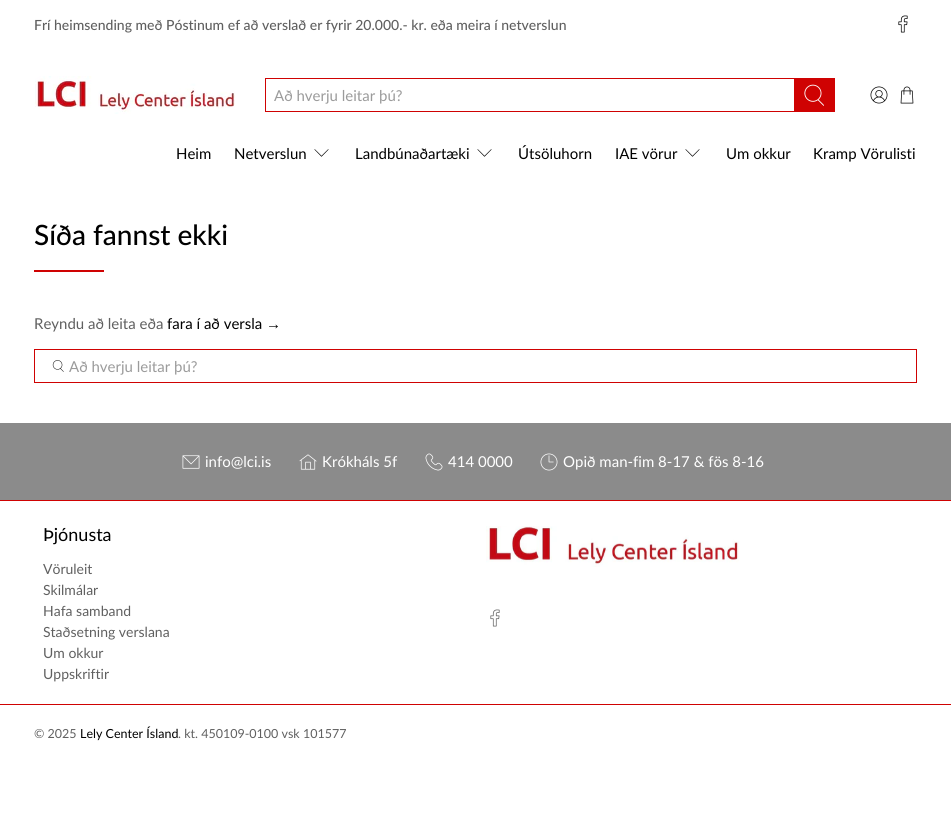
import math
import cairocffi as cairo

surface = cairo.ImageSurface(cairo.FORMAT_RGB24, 951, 834)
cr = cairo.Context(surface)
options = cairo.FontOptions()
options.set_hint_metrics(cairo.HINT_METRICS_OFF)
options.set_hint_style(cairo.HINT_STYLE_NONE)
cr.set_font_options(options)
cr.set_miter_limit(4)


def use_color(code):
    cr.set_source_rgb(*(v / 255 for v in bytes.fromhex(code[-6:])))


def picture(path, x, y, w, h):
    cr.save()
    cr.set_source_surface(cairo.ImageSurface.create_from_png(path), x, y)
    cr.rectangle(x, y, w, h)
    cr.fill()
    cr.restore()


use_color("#ffffff")
cr.paint()
cr.select_font_face("Lato Medium")
cr.set_font_size(14)
use_color("#606060")
cr.move_to(34, 30)
cr.show_text("Frí heimsending með Póstinum ef að verslað er fyrir 20.000.- kr. eða meira í netverslun")
picture("img1.png", 898, 15, 10, 18)
picture("img2.png", 35, 76, 200, 38)
cr.rectangle(265.5, 78.5, 529, 33)
use_color("#cf0202")
cr.set_line_width(1)
cr.stroke()
cr.select_font_face("Lato")
cr.set_font_size(15)
use_color("#9b9b9b")
cr.move_to(274, 101)
cr.show_text("Að hverju leitar þú?")
use_color("#cf0202")
cr.rectangle(795, 78, 40, 34)
cr.fill()
picture("img3.png", 804, 84, 20, 22)
picture("img4.png", 870, 86, 18, 18)
picture("img5.png", 900, 86, 14, 18)
use_color("#000000")
cr.move_to(176, 159)
cr.show_text("Heim")
cr.move_to(234, 159)
cr.show_text("Netverslun")
picture("img6.png", 314, 149, 15, 8)
cr.move_to(355, 159)
cr.show_text("Landbúnaðartæki")
picture("img6.png", 477, 149, 15, 8)
cr.move_to(518, 159)
cr.show_text("Útsöluhorn")
cr.move_to(615, 159)
cr.show_text("IAE vörur")
picture("img6.png", 685, 149, 15, 8)
cr.move_to(726, 159)
cr.show_text("Um okkur")
cr.move_to(813, 159)
cr.show_text("Kramp Vörulisti")
cr.select_font_face("Lato Medium")
cr.set_font_size(28)
cr.move_to(34, 245)
cr.show_text("Síða fannst ekki")
use_color("#cf0202")
cr.rectangle(34, 270, 70, 2)
cr.fill()
cr.select_font_face("Lato")
cr.set_font_size(15)
use_color("#606060")
cr.move_to(34, 329)
cr.show_text("Reyndu að leita eða")
use_color("#000000")
cr.move_to(167, 329)
cr.show_text("fara í að versla")
cr.select_font_face("Liberation Sans")
cr.move_to(266, 329)
cr.show_text("→")
cr.rectangle(34.5, 349.5, 882, 33)
use_color("#cf0202")
cr.stroke()
picture("img7.png", 52, 360, 12, 12)
cr.select_font_face("Lato")
use_color("#9b9b9b")
cr.move_to(69, 372)
cr.show_text("Að hverju leitar þú?")
use_color("#8b8b8b")
cr.rectangle(0, 423, 951, 77)
cr.fill()
picture("img8.png", 182, 455, 18, 14)
use_color("#ffffff")
cr.move_to(205, 467)
cr.show_text("info@lci.is")
picture("img9.png", 299, 454, 18, 16)
cr.move_to(322, 467)
cr.show_text("Krókháls 5f")
picture("img10.png", 425, 453, 18, 18)
cr.move_to(448, 467)
cr.show_text("414 0000")
picture("img11.png", 540, 453, 18, 18)
cr.move_to(563, 467)
cr.show_text("Opið man-fim 8-17 & fös 8-16")
use_color("#cf0202")
cr.rectangle(0, 500, 951, 1)
cr.fill()
cr.rectangle(0, 704, 951, 1)
cr.fill()
cr.set_font_size(18)
use_color("#000000")
cr.move_to(43, 541)
cr.show_text("Þjónusta")
cr.set_font_size(14)
use_color("#606060")
cr.move_to(43, 574)
cr.show_text("Vöruleit")
cr.move_to(43, 595)
cr.show_text("Skilmálar")
cr.move_to(43, 616)
cr.show_text("Hafa samband")
cr.move_to(43, 637)
cr.show_text("Staðsetning verslana")
cr.move_to(43, 658)
cr.show_text("Um okkur")
cr.move_to(43, 679)
cr.show_text("Uppskriftir")
picture("img12.png", 486, 526, 253, 41)
picture("img13.png", 490, 609, 10, 18)
cr.set_font_size(12.5)
cr.move_to(34, 738)
cr.show_text("© 2025")
use_color("#000000")
cr.move_to(80, 738)
cr.show_text("Lely Center Ísland")
use_color("#606060")
cr.move_to(178, 738)
cr.show_text(". kt. 450109-0100 vsk 101577")
surface.write_to_png("result.png")
